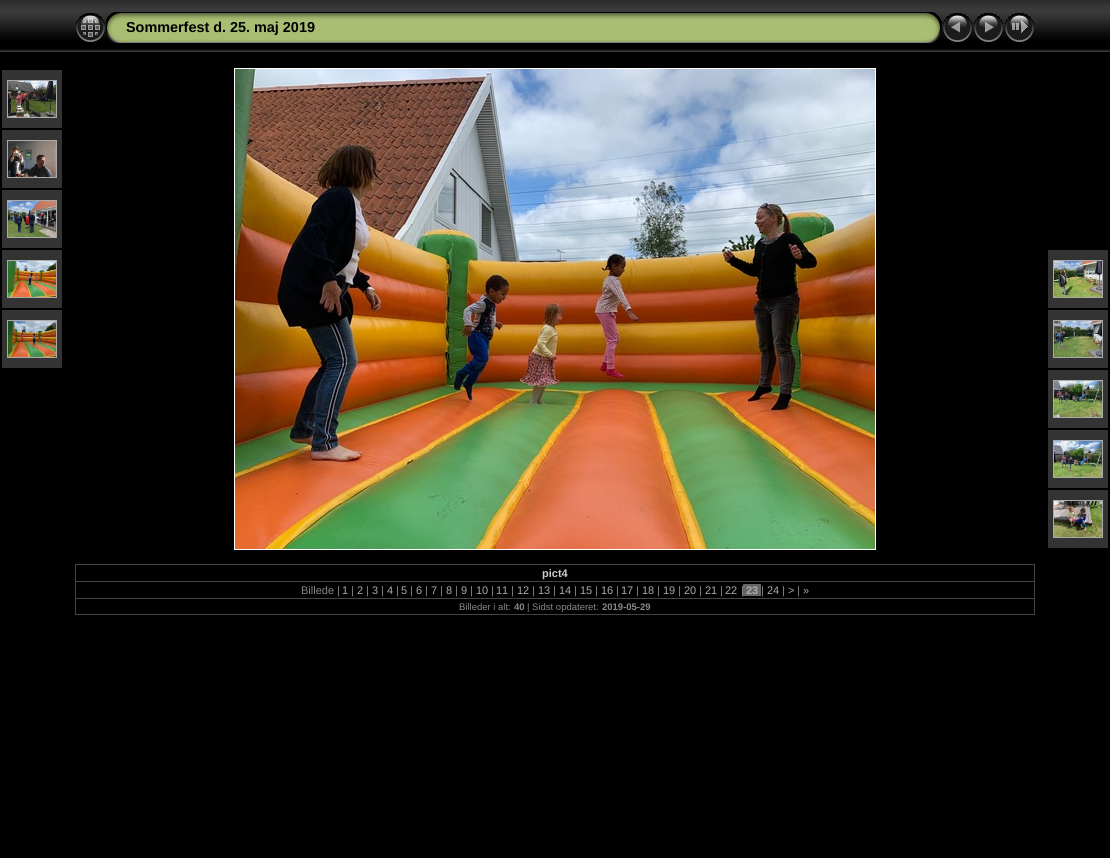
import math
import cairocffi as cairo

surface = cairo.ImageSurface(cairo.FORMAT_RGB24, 1110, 858)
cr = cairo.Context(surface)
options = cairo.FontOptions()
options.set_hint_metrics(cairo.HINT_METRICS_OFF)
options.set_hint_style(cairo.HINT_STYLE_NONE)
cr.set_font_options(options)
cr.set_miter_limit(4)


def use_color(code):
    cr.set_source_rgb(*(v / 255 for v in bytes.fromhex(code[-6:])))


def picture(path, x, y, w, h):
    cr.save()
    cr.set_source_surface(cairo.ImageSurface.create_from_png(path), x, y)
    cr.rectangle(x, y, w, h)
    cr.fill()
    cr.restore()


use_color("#000000")
cr.paint()
picture("img1.png", 0, 0, 1110, 52)
picture("img2.png", 76, 13, 29, 29)
picture("img3.png", 106, 12, 20, 31)
picture("img4.png", 126, 12, 796, 31)
cr.select_font_face("Liberation Sans", cairo.FONT_SLANT_NORMAL, cairo.FONT_WEIGHT_BOLD)
cr.set_font_size(14.4)
use_color("#000000")
cr.move_to(126, 32)
cr.show_text("Sommerfest d. 25. maj 2019")
picture("img5.png", 922, 12, 20, 31)
picture("img6.png", 943, 13, 29, 29)
picture("img7.png", 974, 13, 29, 29)
picture("img8.png", 1005, 13, 29, 29)
use_color("#333333")
cr.rectangle(2, 70, 60, 58)
cr.fill()
cr.rectangle(7.5, 80.5, 49, 37)
use_color("#aaaaaa")
cr.set_line_width(1)
cr.stroke()
picture("img9.png", 8, 81, 48, 36)
use_color("#333333")
cr.rectangle(2, 130, 60, 58)
cr.fill()
cr.rectangle(7.5, 140.5, 49, 37)
use_color("#aaaaaa")
cr.stroke()
picture("img10.png", 8, 141, 48, 36)
use_color("#333333")
cr.rectangle(2, 190, 60, 58)
cr.fill()
cr.rectangle(7.5, 200.5, 49, 37)
use_color("#aaaaaa")
cr.stroke()
picture("img11.png", 8, 201, 48, 36)
use_color("#333333")
cr.rectangle(2, 250, 60, 58)
cr.fill()
cr.rectangle(7.5, 260.5, 49, 37)
use_color("#aaaaaa")
cr.stroke()
picture("img12.png", 8, 261, 48, 36)
use_color("#333333")
cr.rectangle(2, 310, 60, 58)
cr.fill()
cr.rectangle(7.5, 320.5, 49, 37)
use_color("#aaaaaa")
cr.stroke()
picture("img13.png", 8, 321, 48, 36)
cr.rectangle(234.5, 68.5, 641, 481)
use_color("#ffffff")
cr.stroke()
picture("img14.png", 235, 69, 640, 480)
use_color("#333333")
cr.rectangle(1048, 250, 60, 58)
cr.fill()
cr.rectangle(1053.5, 260.5, 49, 37)
use_color("#aaaaaa")
cr.stroke()
picture("img15.png", 1054, 261, 48, 36)
use_color("#333333")
cr.rectangle(1048, 310, 60, 58)
cr.fill()
cr.rectangle(1053.5, 320.5, 49, 37)
use_color("#aaaaaa")
cr.stroke()
picture("img16.png", 1054, 321, 48, 36)
use_color("#333333")
cr.rectangle(1048, 370, 60, 58)
cr.fill()
cr.rectangle(1053.5, 380.5, 49, 37)
use_color("#aaaaaa")
cr.stroke()
picture("img17.png", 1054, 381, 48, 36)
use_color("#333333")
cr.rectangle(1048, 430, 60, 58)
cr.fill()
cr.rectangle(1053.5, 440.5, 49, 37)
use_color("#aaaaaa")
cr.stroke()
picture("img18.png", 1054, 441, 48, 36)
use_color("#333333")
cr.rectangle(1048, 490, 60, 58)
cr.fill()
cr.rectangle(1053.5, 500.5, 49, 37)
use_color("#aaaaaa")
cr.stroke()
picture("img19.png", 1054, 501, 48, 36)
use_color("#444444")
cr.rectangle(75, 564, 960, 1)
cr.fill()
cr.rectangle(1034, 564, 1, 51)
cr.fill()
cr.rectangle(75, 614, 960, 1)
cr.fill()
cr.rectangle(75, 564, 1, 51)
cr.fill()
cr.set_font_size(11)
use_color("#cccccc")
cr.move_to(542, 577)
cr.show_text("pict4")
use_color("#444444")
cr.rectangle(75, 581, 960, 1)
cr.fill()
cr.select_font_face("Liberation Sans")
use_color("#888888")
cr.move_to(301, 594)
cr.show_text("Billede |")
use_color("#aaaaaa")
cr.move_to(342, 594)
cr.show_text("1")
use_color("#888888")
cr.move_to(351, 594)
cr.show_text("|")
use_color("#aaaaaa")
cr.move_to(357, 594)
cr.show_text("2")
use_color("#888888")
cr.move_to(366, 594)
cr.show_text("|")
use_color("#aaaaaa")
cr.move_to(372, 594)
cr.show_text("3")
use_color("#888888")
cr.move_to(381, 594)
cr.show_text("|")
use_color("#aaaaaa")
cr.move_to(387, 594)
cr.show_text("4")
use_color("#888888")
cr.move_to(396, 594)
cr.show_text("|")
use_color("#aaaaaa")
cr.move_to(401, 594)
cr.show_text("5")
use_color("#888888")
cr.move_to(410, 594)
cr.show_text("|")
use_color("#aaaaaa")
cr.move_to(416, 594)
cr.show_text("6")
use_color("#888888")
cr.move_to(425, 594)
cr.show_text("|")
use_color("#aaaaaa")
cr.move_to(431, 594)
cr.show_text("7")
use_color("#888888")
cr.move_to(440, 594)
cr.show_text("|")
use_color("#aaaaaa")
cr.move_to(446, 594)
cr.show_text("8")
use_color("#888888")
cr.move_to(455, 594)
cr.show_text("|")
use_color("#aaaaaa")
cr.move_to(461, 594)
cr.show_text("9")
use_color("#888888")
cr.move_to(470, 594)
cr.show_text("|")
use_color("#aaaaaa")
cr.move_to(476, 594)
cr.show_text("10")
use_color("#888888")
cr.move_to(491, 594)
cr.show_text("|")
use_color("#aaaaaa")
cr.move_to(496, 594)
cr.show_text("11")
use_color("#888888")
cr.move_to(511, 594)
cr.show_text("|")
use_color("#aaaaaa")
cr.move_to(517, 594)
cr.show_text("12")
use_color("#888888")
cr.move_to(532, 594)
cr.show_text("|")
use_color("#aaaaaa")
cr.move_to(538, 594)
cr.show_text("13")
use_color("#888888")
cr.move_to(553, 594)
cr.show_text("|")
use_color("#aaaaaa")
cr.move_to(559, 594)
cr.show_text("14")
use_color("#888888")
cr.move_to(574, 594)
cr.show_text("|")
use_color("#aaaaaa")
cr.move_to(580, 594)
cr.show_text("15")
use_color("#888888")
cr.move_to(595, 594)
cr.show_text("|")
use_color("#aaaaaa")
cr.move_to(601, 594)
cr.show_text("16")
use_color("#888888")
cr.move_to(616, 594)
cr.show_text("|")
use_color("#aaaaaa")
cr.move_to(621, 594)
cr.show_text("17")
use_color("#888888")
cr.move_to(636, 594)
cr.show_text("|")
use_color("#aaaaaa")
cr.move_to(642, 594)
cr.show_text("18")
use_color("#888888")
cr.move_to(657, 594)
cr.show_text("|")
use_color("#aaaaaa")
cr.move_to(663, 594)
cr.show_text("19")
use_color("#888888")
cr.move_to(678, 594)
cr.show_text("|")
use_color("#aaaaaa")
cr.move_to(684, 594)
cr.show_text("20")
use_color("#888888")
cr.move_to(699, 594)
cr.show_text("|")
use_color("#aaaaaa")
cr.move_to(705, 594)
cr.show_text("21")
use_color("#888888")
cr.move_to(720, 594)
cr.show_text("|")
use_color("#aaaaaa")
cr.move_to(725, 594)
cr.show_text("22")
use_color("#888888")
cr.move_to(741, 594)
cr.show_text("|")
use_color("#666666")
cr.rectangle(743, 584, 18, 12)
cr.fill()
cr.select_font_face("Liberation Sans", cairo.FONT_SLANT_NORMAL, cairo.FONT_WEIGHT_BOLD)
use_color("#aaaaaa")
cr.move_to(746, 594)
cr.show_text("23")
cr.select_font_face("Liberation Sans")
use_color("#888888")
cr.move_to(761, 594)
cr.show_text("|")
use_color("#aaaaaa")
cr.move_to(767, 594)
cr.show_text("24")
use_color("#888888")
cr.move_to(782, 594)
cr.show_text("|")
use_color("#aaaaaa")
cr.move_to(788, 594)
cr.show_text(">")
use_color("#888888")
cr.move_to(797, 594)
cr.show_text("|")
use_color("#aaaaaa")
cr.move_to(803, 594)
cr.show_text("»")
use_color("#444444")
cr.rectangle(75, 598, 960, 1)
cr.fill()
cr.set_font_size(9.5)
use_color("#888888")
cr.move_to(459, 610)
cr.show_text("Billeder i alt:")
cr.select_font_face("Liberation Sans", cairo.FONT_SLANT_NORMAL, cairo.FONT_WEIGHT_BOLD)
cr.move_to(514, 610)
cr.show_text("40")
cr.select_font_face("Liberation Sans")
cr.move_to(527, 610)
cr.show_text("| Sidst opdateret:")
cr.select_font_face("Liberation Sans", cairo.FONT_SLANT_NORMAL, cairo.FONT_WEIGHT_BOLD)
cr.move_to(602, 610)
cr.show_text("2019-05-29")
surface.write_to_png("result.png")
